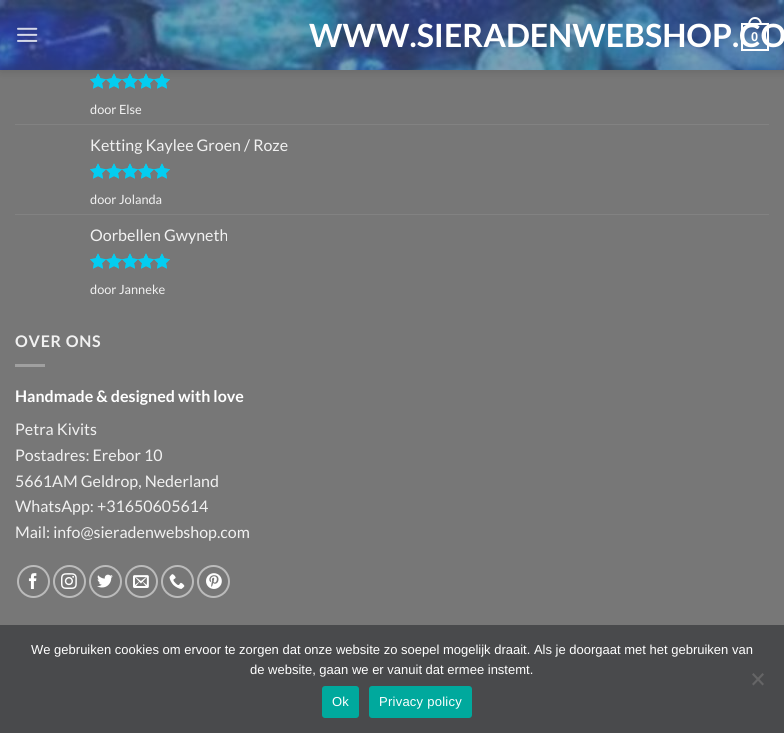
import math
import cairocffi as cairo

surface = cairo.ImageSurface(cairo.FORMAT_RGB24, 784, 733)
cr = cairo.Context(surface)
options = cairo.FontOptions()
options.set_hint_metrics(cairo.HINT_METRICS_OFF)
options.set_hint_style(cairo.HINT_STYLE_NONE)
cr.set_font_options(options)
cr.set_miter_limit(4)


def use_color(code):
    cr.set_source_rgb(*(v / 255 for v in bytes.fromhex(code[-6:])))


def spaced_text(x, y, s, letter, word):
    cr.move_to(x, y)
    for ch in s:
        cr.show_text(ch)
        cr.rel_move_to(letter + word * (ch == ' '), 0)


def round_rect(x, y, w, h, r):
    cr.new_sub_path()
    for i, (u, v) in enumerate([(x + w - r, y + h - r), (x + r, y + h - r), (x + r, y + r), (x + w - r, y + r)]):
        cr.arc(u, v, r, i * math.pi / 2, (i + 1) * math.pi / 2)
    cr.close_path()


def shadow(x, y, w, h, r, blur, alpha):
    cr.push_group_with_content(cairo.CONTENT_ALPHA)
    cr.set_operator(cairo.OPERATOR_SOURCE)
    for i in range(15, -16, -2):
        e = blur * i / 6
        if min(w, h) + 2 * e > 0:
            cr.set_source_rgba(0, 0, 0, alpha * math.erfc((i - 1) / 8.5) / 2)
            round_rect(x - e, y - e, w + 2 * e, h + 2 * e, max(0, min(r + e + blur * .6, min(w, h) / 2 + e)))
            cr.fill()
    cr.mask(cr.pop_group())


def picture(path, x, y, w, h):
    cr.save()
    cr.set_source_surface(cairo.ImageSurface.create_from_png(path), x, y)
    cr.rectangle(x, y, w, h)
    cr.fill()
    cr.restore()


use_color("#777777")
cr.paint()
picture("img3.png", 90, 73, 80, 16)
picture("img4.png", 90, 73, 80, 16)
use_color("#000000")
shadow(1, 1, 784, 70, 0, 5, 0.15)
picture("img1.png", 0, 0, 784, 70)
picture("img2.png", 17, 27, 21, 15)
cr.select_font_face("Lato", cairo.FONT_SLANT_NORMAL, cairo.FONT_WEIGHT_BOLD)
cr.set_font_size(32)
use_color("#ffffff")
cr.move_to(309, 47)
cr.show_text("WWW.SIERADENWEBSHOP.CO")
cr.rectangle(742, 24, 26, 26)
cr.stroke()
cr.set_fill_rule(cairo.FILL_RULE_EVEN_ODD)
cr.new_path()
cr.move_to(755, 17)
cr.curve_to(759.5, 17, 762, 21, 762, 25)
cr.line_to(748, 25)
cr.curve_to(748, 21, 750.5, 17, 755, 17)
cr.close_path()
cr.move_to(755, 19)
cr.curve_to(758.5, 19, 760, 22, 760, 25)
cr.line_to(750, 25)
cr.curve_to(750, 22, 751.5, 19, 755, 19)
cr.close_path()
cr.fill()
cr.select_font_face("Liberation Sans", cairo.FONT_SLANT_NORMAL, cairo.FONT_WEIGHT_BOLD)
cr.set_font_size(12.75)
cr.move_to(751, 41)
cr.show_text("0")
cr.select_font_face("Lato")
use_color("#f1f1f1")
cr.move_to(90, 114)
cr.show_text("door Else")
use_color("#828282")
cr.rectangle(15, 124, 754, 1)
cr.fill()
cr.set_font_size(16)
use_color("#f1f1f1")
cr.move_to(90, 151)
cr.show_text("Ketting Kaylee Groen / Roze")
picture("img3.png", 90, 163, 80, 16)
picture("img4.png", 90, 163, 80, 16)
cr.set_font_size(12.75)
cr.move_to(90, 204)
cr.show_text("door Jolanda")
use_color("#828282")
cr.rectangle(15, 214, 754, 1)
cr.fill()
cr.set_font_size(16)
use_color("#f1f1f1")
cr.move_to(90, 241)
cr.show_text("Oorbellen Gwyneth")
picture("img3.png", 90, 253, 80, 16)
picture("img4.png", 90, 253, 80, 16)
cr.set_font_size(12.75)
cr.move_to(90, 294)
cr.show_text("door Janneke")
cr.select_font_face("Lato", cairo.FONT_SLANT_NORMAL, cairo.FONT_WEIGHT_BOLD)
cr.set_font_size(16)
spaced_text(15, 347, "OVER ONS", 0.75, 0)
use_color("#a0a0a0")
cr.rectangle(15, 364, 30, 3)
cr.fill()
use_color("#ffffff")
cr.move_to(15, 402)
cr.show_text("Handmade & designed with love")
cr.select_font_face("Lato")
use_color("#f1f1f1")
cr.move_to(15, 435)
cr.show_text("Petra Kivits")
cr.move_to(15, 461)
cr.show_text("Postadres: Erebor 10")
cr.move_to(15, 487)
cr.show_text("5661AM Geldrop, Nederland")
cr.move_to(15, 512)
cr.show_text("WhatsApp: +31650605614")
cr.move_to(15, 538)
cr.show_text("Mail: info@sieradenwebshop.com")
cr.new_path()
cr.arc(33.5, 581.5, 15.5, 0, 2 * math.pi)
use_color("#bbbbbb")
cr.stroke()
picture("img5.png", 28, 573, 9, 16)
cr.arc(69.5, 581.5, 15.5, 0, 2 * math.pi)
cr.stroke()
picture("img6.png", 61, 573, 16, 16)
cr.arc(105.5, 581.5, 15.5, 0, 2 * math.pi)
cr.stroke()
picture("img7.png", 97, 574, 16, 14)
cr.arc(141.5, 581.5, 15.5, 0, 2 * math.pi)
cr.stroke()
picture("img8.png", 133, 575, 16, 13)
cr.arc(177.5, 581.5, 15.5, 0, 2 * math.pi)
cr.stroke()
picture("img9.png", 169, 574, 16, 15)
cr.arc(213.5, 581.5, 15.5, 0, 2 * math.pi)
cr.stroke()
picture("img10.png", 206, 573, 16, 16)
use_color("#494a4c")
cr.rectangle(0, 625, 784, 108)
cr.fill()
cr.select_font_face("Liberation Sans")
cr.set_font_size(13)
use_color("#ffffff")
cr.move_to(31, 654)
cr.show_text("We gebruiken cookies om ervoor te zorgen dat onze website zo soepel mogelijk draait. Als je doorgaat met het gebruiken van")
cr.move_to(250, 674)
cr.show_text("de website, gaan we er vanuit dat ermee instemt.")
use_color("#656566")
cr.set_fill_rule(cairo.FILL_RULE_WINDING)
cr.new_path()
cr.move_to(762.5, 673)
cr.line_to(764, 674.5)
cr.line_to(753.5, 685.5)
cr.line_to(752, 684)
cr.close_path()
cr.fill()
cr.new_path()
cr.move_to(752, 674.5)
cr.line_to(753.5, 673)
cr.line_to(764, 684)
cr.line_to(762.5, 685.5)
cr.close_path()
cr.fill()
use_color("#00a99d")
round_rect(322, 686, 37, 32, 3)
cr.fill()
use_color("#ffffff")
spaced_text(332, 706, "Ok", 0.25, 0)
use_color("#00a99d")
round_rect(369, 686, 103, 32, 3)
cr.fill()
use_color("#ffffff")
spaced_text(379, 706, "Privacy policy", 0.25, 0)
surface.write_to_png("result.png")
